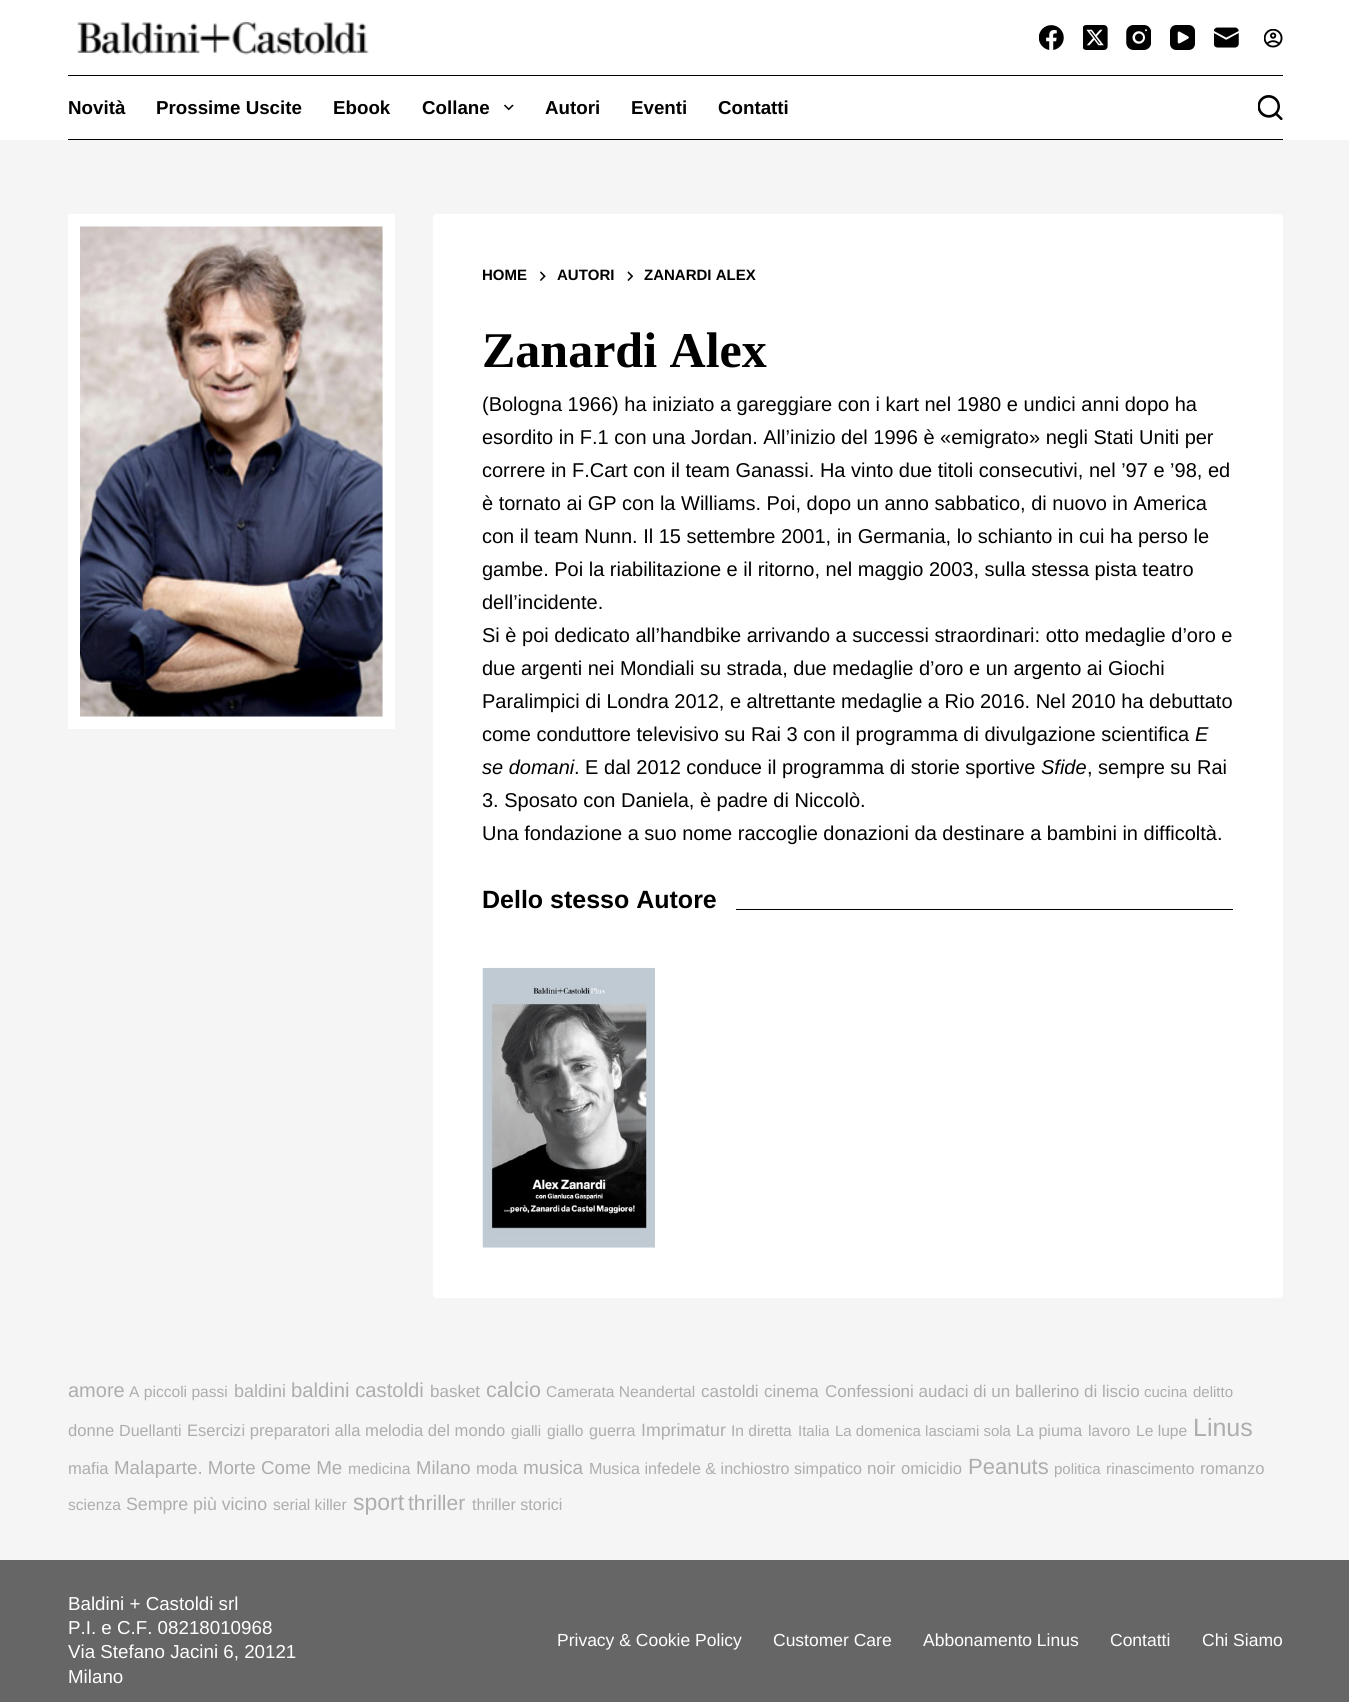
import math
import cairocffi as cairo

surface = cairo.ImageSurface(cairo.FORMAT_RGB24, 1349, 1702)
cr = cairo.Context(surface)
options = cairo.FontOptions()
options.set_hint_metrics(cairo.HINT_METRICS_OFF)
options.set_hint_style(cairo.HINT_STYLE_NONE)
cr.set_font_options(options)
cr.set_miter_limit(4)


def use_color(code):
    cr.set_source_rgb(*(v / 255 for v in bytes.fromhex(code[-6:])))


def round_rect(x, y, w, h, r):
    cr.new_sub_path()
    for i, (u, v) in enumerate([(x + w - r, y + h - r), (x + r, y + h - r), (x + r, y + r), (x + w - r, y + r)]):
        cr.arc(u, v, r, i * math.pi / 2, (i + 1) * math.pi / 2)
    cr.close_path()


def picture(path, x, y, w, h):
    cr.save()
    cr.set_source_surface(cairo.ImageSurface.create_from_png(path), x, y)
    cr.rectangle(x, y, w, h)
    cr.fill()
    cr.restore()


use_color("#f5f5f6")
cr.paint()
use_color("#ffffff")
cr.rectangle(0, 0, 1349, 140)
cr.fill()
picture("img1.png", 77, 21, 292, 34)
picture("img2.png", 1039, 25, 25, 25)
picture("img3.png", 1083, 25, 25, 25)
picture("img4.png", 1126, 25, 25, 25)
picture("img5.png", 1170, 25, 25, 25)
picture("img6.png", 1214, 27, 25, 21)
picture("img7.png", 1264, 29, 19, 19)
use_color("#000000")
cr.rectangle(68, 75, 1215, 1)
cr.fill()
cr.rectangle(68, 139, 1215, 1)
cr.fill()
cr.select_font_face("Liberation Sans", cairo.FONT_SLANT_NORMAL, cairo.FONT_WEIGHT_BOLD)
cr.set_font_size(18.75)
cr.move_to(68, 114)
cr.show_text("Novità")
cr.move_to(156, 114)
cr.show_text("Prossime Uscite")
cr.move_to(333, 114)
cr.show_text("Ebook")
cr.move_to(422, 114)
cr.show_text("Collane")
picture("img8.png", 504, 104, 10, 7)
cr.move_to(545, 114)
cr.show_text("Autori")
cr.move_to(631, 114)
cr.show_text("Eventi")
cr.move_to(718, 114)
cr.show_text("Contatti")
picture("img9.png", 1258, 95, 25, 25)
use_color("#ffffff")
cr.rectangle(68, 214, 327, 515)
cr.fill()
picture("img10.png", 80, 226, 303, 491)
round_rect(433, 214, 850, 1084, 4)
cr.fill()
cr.set_font_size(15)
use_color("#000000")
cr.move_to(482, 280)
cr.show_text("HOME")
picture("img11.png", 540, 271, 6, 10)
cr.move_to(557, 280)
cr.show_text("AUTORI")
picture("img12.png", 627, 271, 7, 10)
cr.move_to(644, 280)
cr.show_text("ZANARDI ALEX")
cr.select_font_face("Liberation Serif", cairo.FONT_SLANT_NORMAL, cairo.FONT_WEIGHT_BOLD)
cr.set_font_size(50)
cr.move_to(482, 367)
cr.show_text("Zanardi Alex")
cr.select_font_face("Liberation Sans")
cr.set_font_size(20)
cr.move_to(482, 411)
cr.show_text("(Bologna 1966) ha iniziato a gareggiare con i kart nel 1980 e undici anni dopo ha")
cr.move_to(482, 444)
cr.show_text("esordito in F.1 con una Jordan. All’inizio del 1996 è «emigrato» negli Stati Uniti per")
cr.move_to(482, 477)
cr.show_text("correre in F.Cart con il team Ganassi. Ha vinto due titoli consecutivi, nel ’97 e ’98, ed")
cr.move_to(482, 510)
cr.show_text("è tornato ai GP con la Williams. Poi, dopo un anno sabbatico, di nuovo in America")
cr.move_to(482, 543)
cr.show_text("con il team Nunn. Il 15 settembre 2001, in Germania, lo schianto in cui ha perso le")
cr.move_to(482, 576)
cr.show_text("gambe. Poi la riabilitazione e il ritorno, nel maggio 2003, sulla stessa pista teatro")
cr.move_to(482, 609)
cr.show_text("dell’incidente.")
cr.move_to(482, 642)
cr.show_text("Si è poi dedicato all’handbike arrivando a successi straordinari: otto medaglie d’oro e")
cr.move_to(482, 675)
cr.show_text("due argenti nei Mondiali su strada, due medaglie d’oro e un argento ai Giochi")
cr.move_to(482, 708)
cr.show_text("Paralimpici di Londra 2012, e altrettante medaglie a Rio 2016. Nel 2010 ha debuttato")
cr.move_to(482, 741)
cr.show_text("come conduttore televisivo su Rai 3 con il programma di divulgazione scientifica")
cr.select_font_face("Liberation Sans", cairo.FONT_SLANT_ITALIC)
cr.move_to(1195, 741)
cr.show_text("E")
cr.move_to(482, 774)
cr.show_text("se domani")
cr.select_font_face("Liberation Sans")
cr.move_to(574, 774)
cr.show_text(". E dal 2012 conduce il programma di storie sportive")
cr.select_font_face("Liberation Sans", cairo.FONT_SLANT_ITALIC)
cr.move_to(1041, 774)
cr.show_text("Sfide")
cr.select_font_face("Liberation Sans")
cr.move_to(1087, 774)
cr.show_text(", sempre su Rai")
cr.move_to(482, 807)
cr.show_text("3. Sposato con Daniela, è padre di Niccolò.")
cr.move_to(482, 840)
cr.show_text("Una fondazione a suo nome raccoglie donazioni da destinare a bambini in difficoltà.")
cr.select_font_face("Liberation Sans", cairo.FONT_SLANT_NORMAL, cairo.FONT_WEIGHT_BOLD)
cr.set_font_size(25)
cr.move_to(482, 908)
cr.show_text("Dello stesso Autore")
cr.rectangle(736, 909, 497, 1)
cr.fill()
picture("img13.png", 482, 967, 173, 281)
cr.select_font_face("Liberation Sans")
cr.set_font_size(20)
use_color("#adadad")
cr.move_to(68, 1397)
cr.show_text("amore")
cr.set_font_size(15.6)
cr.move_to(129, 1397)
cr.show_text("A piccoli passi")
cr.set_font_size(18)
cr.move_to(234, 1397)
cr.show_text("baldini")
cr.set_font_size(20.25)
cr.move_to(291, 1397)
cr.show_text("baldini castoldi")
cr.set_font_size(17)
cr.move_to(430, 1397)
cr.show_text("basket")
cr.set_font_size(21.5)
cr.move_to(486, 1397)
cr.show_text("calcio")
cr.set_font_size(15.6)
cr.move_to(546, 1397)
cr.show_text("Camerata Neandertal")
cr.set_font_size(17)
cr.move_to(701, 1397)
cr.show_text("castoldi")
cr.move_to(764, 1397)
cr.show_text("cinema")
cr.move_to(825, 1397)
cr.show_text("Confessioni audaci di un ballerino di liscio")
cr.set_font_size(15)
cr.move_to(1144, 1397)
cr.show_text("cucina")
cr.move_to(1193, 1397)
cr.show_text("delitto")
cr.set_font_size(16.6)
cr.move_to(68, 1436)
cr.show_text("donne")
cr.set_font_size(16.1)
cr.move_to(119, 1436)
cr.show_text("Duellanti")
cr.set_font_size(16.6)
cr.move_to(187, 1436)
cr.show_text("Esercizi preparatori alla melodia del mondo")
cr.set_font_size(15)
cr.move_to(511, 1436)
cr.show_text("gialli")
cr.set_font_size(15.6)
cr.move_to(547, 1436)
cr.show_text("giallo")
cr.set_font_size(16.1)
cr.move_to(589, 1436)
cr.show_text("guerra")
cr.set_font_size(17.75)
cr.move_to(641, 1436)
cr.show_text("Imprimatur")
cr.set_font_size(15.6)
cr.move_to(731, 1436)
cr.show_text("In diretta")
cr.set_font_size(15)
cr.move_to(798, 1436)
cr.show_text("Italia")
cr.move_to(835, 1436)
cr.show_text("La domenica lasciami sola")
cr.set_font_size(16.1)
cr.move_to(1016, 1436)
cr.show_text("La piuma")
cr.set_font_size(15.6)
cr.move_to(1088, 1436)
cr.show_text("lavoro")
cr.move_to(1136, 1436)
cr.show_text("Le lupe")
cr.set_font_size(25)
cr.move_to(1193, 1436)
cr.show_text("Linus")
cr.set_font_size(16.6)
cr.move_to(68, 1474)
cr.show_text("mafia")
cr.set_font_size(18.75)
cr.move_to(114, 1474)
cr.show_text("Malaparte. Morte Come Me")
cr.set_font_size(15.6)
cr.move_to(348, 1474)
cr.show_text("medicina")
cr.set_font_size(18.5)
cr.move_to(416, 1474)
cr.show_text("Milano")
cr.set_font_size(16.6)
cr.move_to(476, 1474)
cr.show_text("moda")
cr.set_font_size(19)
cr.move_to(523, 1474)
cr.show_text("musica")
cr.set_font_size(16.1)
cr.move_to(589, 1474)
cr.show_text("Musica infedele & inchiostro simpatico")
cr.set_font_size(17)
cr.move_to(867, 1474)
cr.show_text("noir")
cr.set_font_size(16.6)
cr.move_to(901, 1474)
cr.show_text("omicidio")
cr.set_font_size(22)
cr.move_to(968, 1474)
cr.show_text("Peanuts")
cr.set_font_size(15)
cr.move_to(1054, 1474)
cr.show_text("politica")
cr.set_font_size(15.6)
cr.move_to(1106, 1474)
cr.show_text("rinascimento")
cr.set_font_size(16.6)
cr.move_to(1200, 1474)
cr.show_text("romanzo")
cr.set_font_size(15.6)
cr.move_to(68, 1510)
cr.show_text("scienza")
cr.set_font_size(17.75)
cr.move_to(126, 1510)
cr.show_text("Sempre più vicino")
cr.set_font_size(15.6)
cr.move_to(273, 1510)
cr.show_text("serial killer")
cr.set_font_size(23)
cr.move_to(353, 1510)
cr.show_text("sport")
cr.set_font_size(21)
cr.move_to(408, 1510)
cr.show_text("thriller")
cr.set_font_size(16.1)
cr.move_to(472, 1510)
cr.show_text("thriller storici")
use_color("#666666")
cr.rectangle(0, 1560, 1349, 142)
cr.fill()
cr.set_font_size(18.75)
use_color("#ffffff")
cr.move_to(68, 1610)
cr.show_text("Baldini + Castoldi srl")
cr.move_to(68, 1634)
cr.show_text("P.I. e C.F. 08218010968")
cr.move_to(68, 1658)
cr.show_text("Via Stefano Jacini 6, 20121")
cr.move_to(68, 1683)
cr.show_text("Milano")
cr.set_font_size(17.5)
cr.move_to(557, 1646)
cr.show_text("Privacy & Cookie Policy")
cr.move_to(773, 1646)
cr.show_text("Customer Care")
cr.move_to(923, 1646)
cr.show_text("Abbonamento Linus")
cr.move_to(1110, 1646)
cr.show_text("Contatti")
cr.move_to(1202, 1646)
cr.show_text("Chi Siamo")
surface.write_to_png("result.png")
